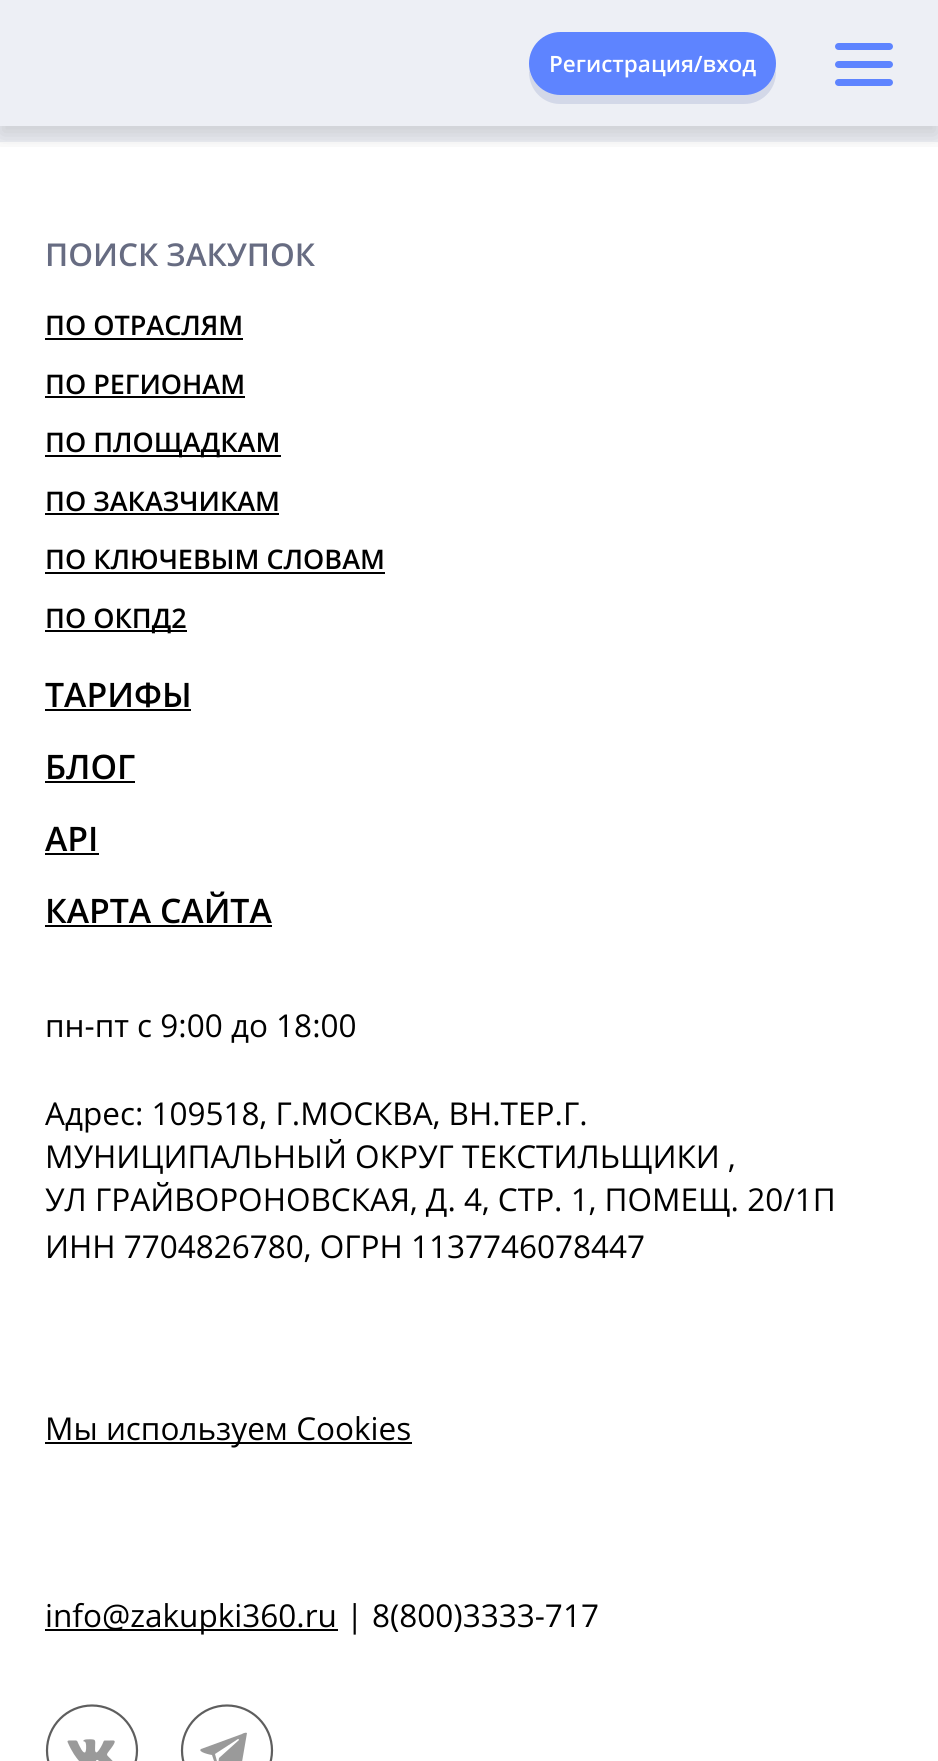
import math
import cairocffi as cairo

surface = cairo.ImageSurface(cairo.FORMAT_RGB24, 938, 1761)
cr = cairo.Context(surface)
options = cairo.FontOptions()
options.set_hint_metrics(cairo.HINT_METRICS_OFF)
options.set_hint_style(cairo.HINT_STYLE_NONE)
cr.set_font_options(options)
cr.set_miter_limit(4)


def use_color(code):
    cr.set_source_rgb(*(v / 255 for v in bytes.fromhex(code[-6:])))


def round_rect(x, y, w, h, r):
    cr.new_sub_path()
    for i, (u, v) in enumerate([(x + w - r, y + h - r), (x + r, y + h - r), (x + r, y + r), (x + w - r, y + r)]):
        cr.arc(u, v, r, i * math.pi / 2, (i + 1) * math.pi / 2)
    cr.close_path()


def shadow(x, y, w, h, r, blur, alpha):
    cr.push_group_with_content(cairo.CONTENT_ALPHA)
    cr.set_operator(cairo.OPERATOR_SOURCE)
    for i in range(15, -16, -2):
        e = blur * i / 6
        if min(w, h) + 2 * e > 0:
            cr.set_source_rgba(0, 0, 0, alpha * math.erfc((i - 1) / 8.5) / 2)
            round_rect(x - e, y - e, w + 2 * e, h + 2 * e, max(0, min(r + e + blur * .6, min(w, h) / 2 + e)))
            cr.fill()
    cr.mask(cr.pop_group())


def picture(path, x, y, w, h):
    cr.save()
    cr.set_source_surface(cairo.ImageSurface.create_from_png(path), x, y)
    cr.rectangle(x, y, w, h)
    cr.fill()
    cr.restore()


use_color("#edeff5")
cr.paint()
use_color("#ffffff")
cr.rectangle(0, 142, 938, 1619)
cr.fill()
cr.save()
cr.rectangle(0, 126, 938, 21)
cr.clip()
use_color("#000000")
shadow(0, 9, 938, 126, 0, 11, 0.15)
cr.restore()
use_color("#d3d8e8")
cr.new_path()
cr.move_to(529, 69)
cr.line_to(529, 72)
cr.curve_to(529, 90, 543, 104, 560, 104)
cr.line_to(744, 104)
cr.curve_to(762, 104, 776, 90, 776, 72)
cr.line_to(776, 69)
cr.curve_to(773, 83, 760, 94, 745, 94)
cr.line_to(560, 94)
cr.curve_to(545, 94, 532, 83, 529, 69)
cr.close_path()
cr.fill()
use_color("#5e84ff")
round_rect(529, 32, 247, 63, 31.5)
cr.fill()
cr.select_font_face("Open Sans SemiBold")
cr.set_font_size(22.5)
use_color("#ffffff")
cr.move_to(549, 72)
cr.show_text("Регистрация/вход")
use_color("#5e84ff")
round_rect(835, 43, 58, 7, 3.5)
cr.fill()
round_rect(835, 61, 58, 7, 3.5)
cr.fill()
round_rect(835, 79, 58, 7, 3.5)
cr.fill()
cr.set_font_size(31.5)
use_color("#676c82")
cr.move_to(45, 266)
cr.show_text("ПОИСК ЗАКУПОК")
cr.set_font_size(27)
use_color("#000000")
cr.move_to(45, 335)
cr.show_text("ПО ОТРАСЛЯМ")
cr.rectangle(45, 338, 198, 2)
cr.fill()
cr.move_to(45, 394)
cr.show_text("ПО РЕГИОНАМ")
cr.rectangle(45, 396, 200, 2)
cr.fill()
cr.rectangle(45, 455, 236, 2)
cr.fill()
cr.move_to(45, 452)
cr.show_text("ПО ПЛОЩАДКАМ")
cr.move_to(45, 511)
cr.show_text("ПО ЗАКАЗЧИКАМ")
cr.rectangle(45, 513, 234, 2)
cr.fill()
cr.move_to(45, 569)
cr.show_text("ПО КЛЮЧЕВЫМ СЛОВАМ")
cr.rectangle(45, 572, 340, 2)
cr.fill()
cr.rectangle(45, 630, 142, 2)
cr.fill()
cr.move_to(45, 628)
cr.show_text("ПО ОКПД2")
cr.set_font_size(33.75)
cr.move_to(45, 707)
cr.show_text("ТАРИФЫ")
cr.rectangle(45, 709, 146, 2)
cr.fill()
cr.move_to(45, 779)
cr.show_text("БЛОГ")
cr.rectangle(45, 781, 90, 2)
cr.fill()
cr.move_to(45, 851)
cr.show_text("API")
cr.rectangle(45, 853, 54, 2)
cr.fill()
cr.move_to(45, 923)
cr.show_text("КАРТА САЙТА")
cr.rectangle(45, 925, 227, 2)
cr.fill()
cr.select_font_face("Open Sans")
cr.set_font_size(31.5)
cr.move_to(45, 1037)
cr.show_text("пн-пт с 9:00 до 18:00")
cr.move_to(45, 1125)
cr.show_text("Адрес: 109518, Г.МОСКВА, ВН.ТЕР.Г.")
cr.move_to(45, 1168)
cr.show_text("МУНИЦИПАЛЬНЫЙ ОКРУГ ТЕКСТИЛЬЩИКИ ,")
cr.move_to(45, 1211)
cr.show_text("УЛ ГРАЙВОРОНОВСКАЯ, Д. 4, СТР. 1, ПОМЕЩ. 20/1П")
cr.move_to(45, 1258)
cr.show_text("ИНН 7704826780, ОГРН 1137746078447")
cr.rectangle(45, 1442, 367, 2)
cr.fill()
cr.move_to(45, 1440)
cr.show_text("Мы используем Cookies")
cr.rectangle(45, 1629, 293, 2)
cr.fill()
cr.move_to(45, 1627)
cr.show_text("info@zakupki360.ru")
cr.move_to(346, 1627)
cr.show_text("|")
cr.move_to(372, 1627)
cr.show_text("8(800)3333-717")
picture("img1.png", 45, 1704, 94, 57)
cr.arc(227, 1750.5, 45, 0, 2 * math.pi)
use_color("#5e5e5e")
cr.set_line_width(2.2)
cr.stroke()
use_color("#9a9a9a")
cr.set_fill_rule(cairo.FILL_RULE_EVEN_ODD)
cr.new_path()
cr.move_to(236, 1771)
cr.curve_to(241, 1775, 242, 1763, 242, 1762)
cr.line_to(247, 1733)
cr.curve_to(245, 1732, 242, 1734, 242, 1734)
cr.line_to(201, 1749)
cr.curve_to(197, 1752, 211, 1755, 212, 1755)
cr.line_to(216, 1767)
cr.curve_to(217, 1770, 218, 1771, 221, 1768)
cr.line_to(225, 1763)
cr.close_path()
cr.move_to(215, 1754)
cr.line_to(218, 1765)
cr.line_to(219, 1758)
cr.line_to(239, 1740)
cr.curve_to(239, 1740, 239, 1739, 238, 1739)
cr.close_path()
cr.fill()
surface.write_to_png("result.png")
